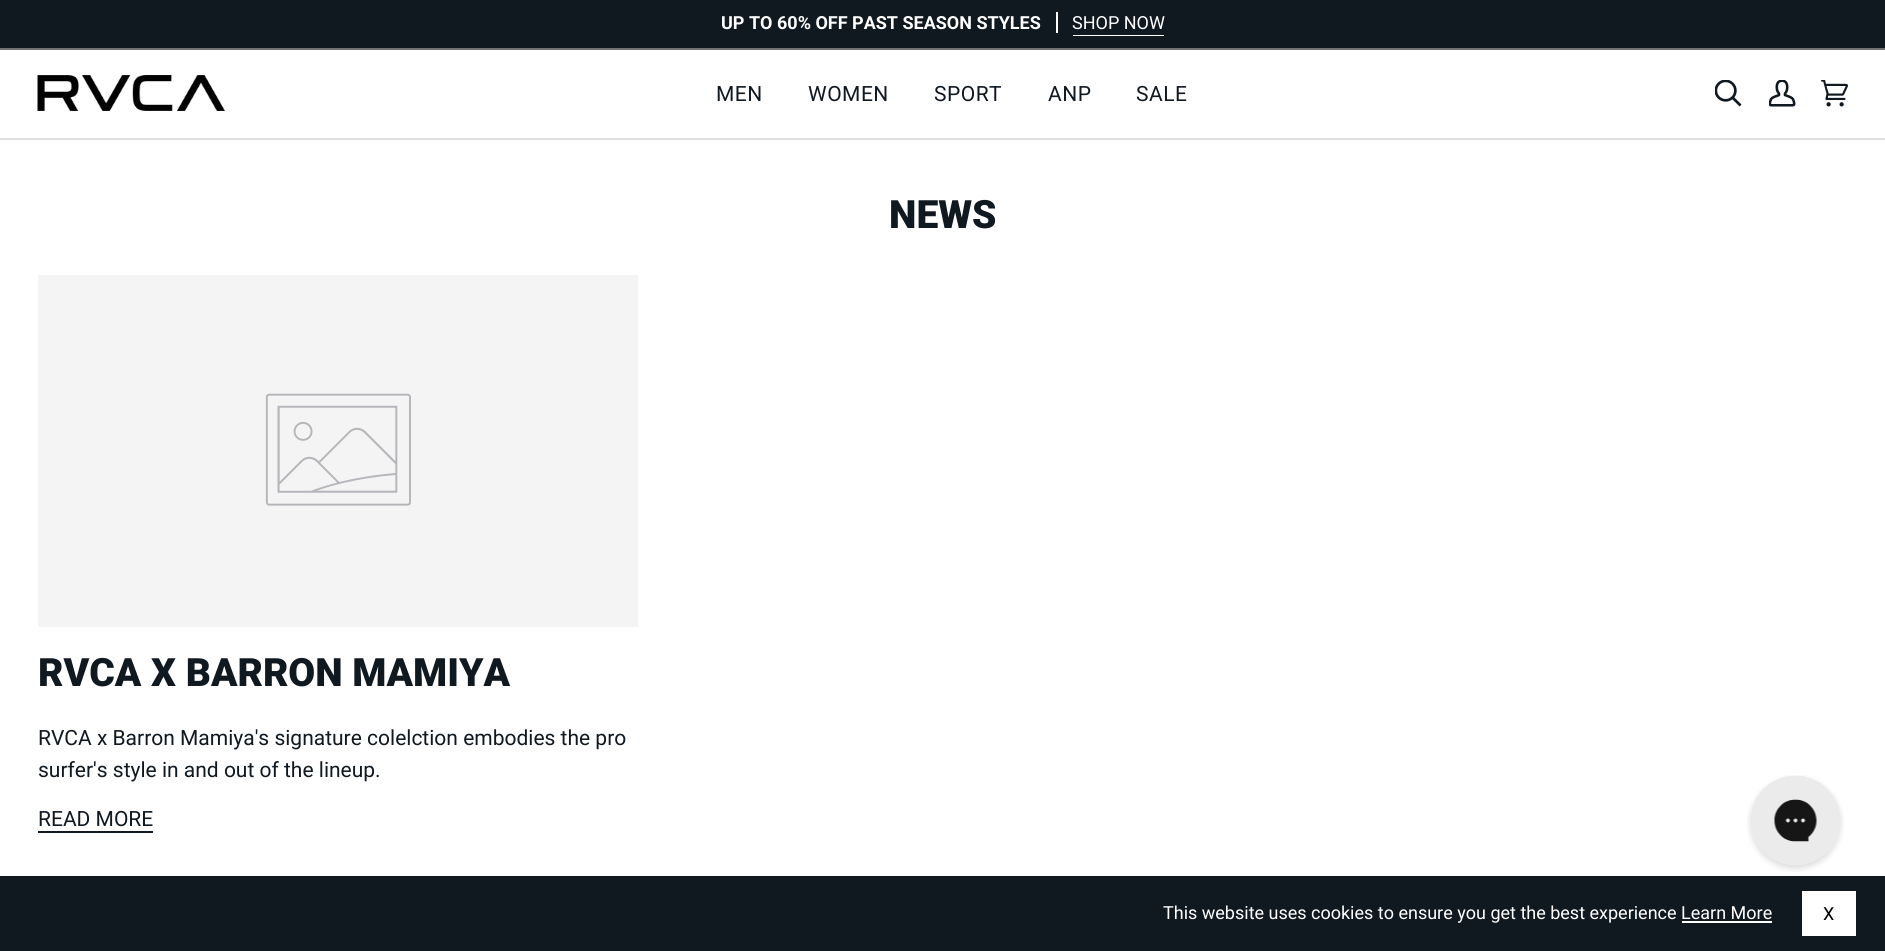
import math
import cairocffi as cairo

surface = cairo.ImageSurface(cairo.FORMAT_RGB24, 1885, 951)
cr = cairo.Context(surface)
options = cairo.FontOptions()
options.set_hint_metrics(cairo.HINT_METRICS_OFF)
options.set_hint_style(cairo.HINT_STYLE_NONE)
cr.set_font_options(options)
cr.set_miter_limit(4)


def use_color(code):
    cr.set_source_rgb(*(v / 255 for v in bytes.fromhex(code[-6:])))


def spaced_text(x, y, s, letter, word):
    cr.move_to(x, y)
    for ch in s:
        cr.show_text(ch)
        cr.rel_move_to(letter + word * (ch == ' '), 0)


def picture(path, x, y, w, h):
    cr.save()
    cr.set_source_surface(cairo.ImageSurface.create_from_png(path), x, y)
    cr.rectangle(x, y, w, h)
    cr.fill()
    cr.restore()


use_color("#ffffff")
cr.paint()
use_color("#737373")
cr.rectangle(0, 48, 1885, 2)
cr.fill()
use_color("#101820")
cr.rectangle(0, 0, 1885, 48)
cr.fill()
cr.select_font_face("Roboto", cairo.FONT_SLANT_NORMAL, cairo.FONT_WEIGHT_BOLD)
cr.set_font_size(18)
use_color("#ffffff")
cr.move_to(721, 29)
cr.show_text("UP TO 60% OFF PAST SEASON STYLES")
cr.rectangle(1056, 12, 2, 21)
cr.fill()
cr.select_font_face("Roboto")
cr.move_to(1072, 29)
cr.show_text("SHOP NOW")
cr.rectangle(1073, 35, 91, 1)
cr.fill()
use_color("#e0e0e0")
cr.rectangle(0, 138, 1885, 2)
cr.fill()
picture("img1.png", 37, 75, 188, 36)
cr.set_font_size(21)
use_color("#101820")
spaced_text(716, 101, "MEN", 0.5, 0)
spaced_text(808, 101, "WOMEN", 0.5, 0)
spaced_text(934, 101, "SPORT", 0.5, 0)
spaced_text(1048, 101, "ANP", 0.5, 0)
spaced_text(1136, 101, "SALE", 0.5, 0)
picture("img2.png", 1715, 80, 27, 27)
picture("img3.png", 1769, 80, 27, 27)
picture("img4.png", 1821, 80, 27, 27)
cr.select_font_face("Roboto Black")
cr.set_font_size(39)
cr.move_to(889, 228)
cr.show_text("NEWS")
use_color("#f4f4f5")
cr.rectangle(38, 275, 600, 352)
cr.fill()
picture("img5.png", 265, 393, 146, 113)
use_color("#101820")
cr.move_to(38, 686)
cr.show_text("RVCA X BARRON MAMIYA")
cr.select_font_face("Roboto")
cr.set_font_size(21)
cr.move_to(38, 745)
cr.show_text("RVCA x Barron Mamiya's signature colelction embodies the pro")
cr.move_to(38, 777)
cr.show_text("surfer's style in and out of the lineup.")
cr.move_to(38, 826)
cr.show_text("READ MORE")
cr.rectangle(38, 831, 115, 2)
cr.fill()
picture("img6.png", 1747, 775, 97, 97)
cr.rectangle(0, 876, 1885, 75)
cr.fill()
cr.set_font_size(18)
use_color("#ffffff")
cr.move_to(1163, 919)
cr.show_text("This website uses cookies to ensure you get the best experience Learn More")
cr.rectangle(1682, 921, 90, 2)
cr.fill()
cr.rectangle(1802, 891, 54, 45)
cr.fill()
use_color("#000000")
cr.move_to(1823, 920)
cr.show_text("X")
surface.write_to_png("result.png")
